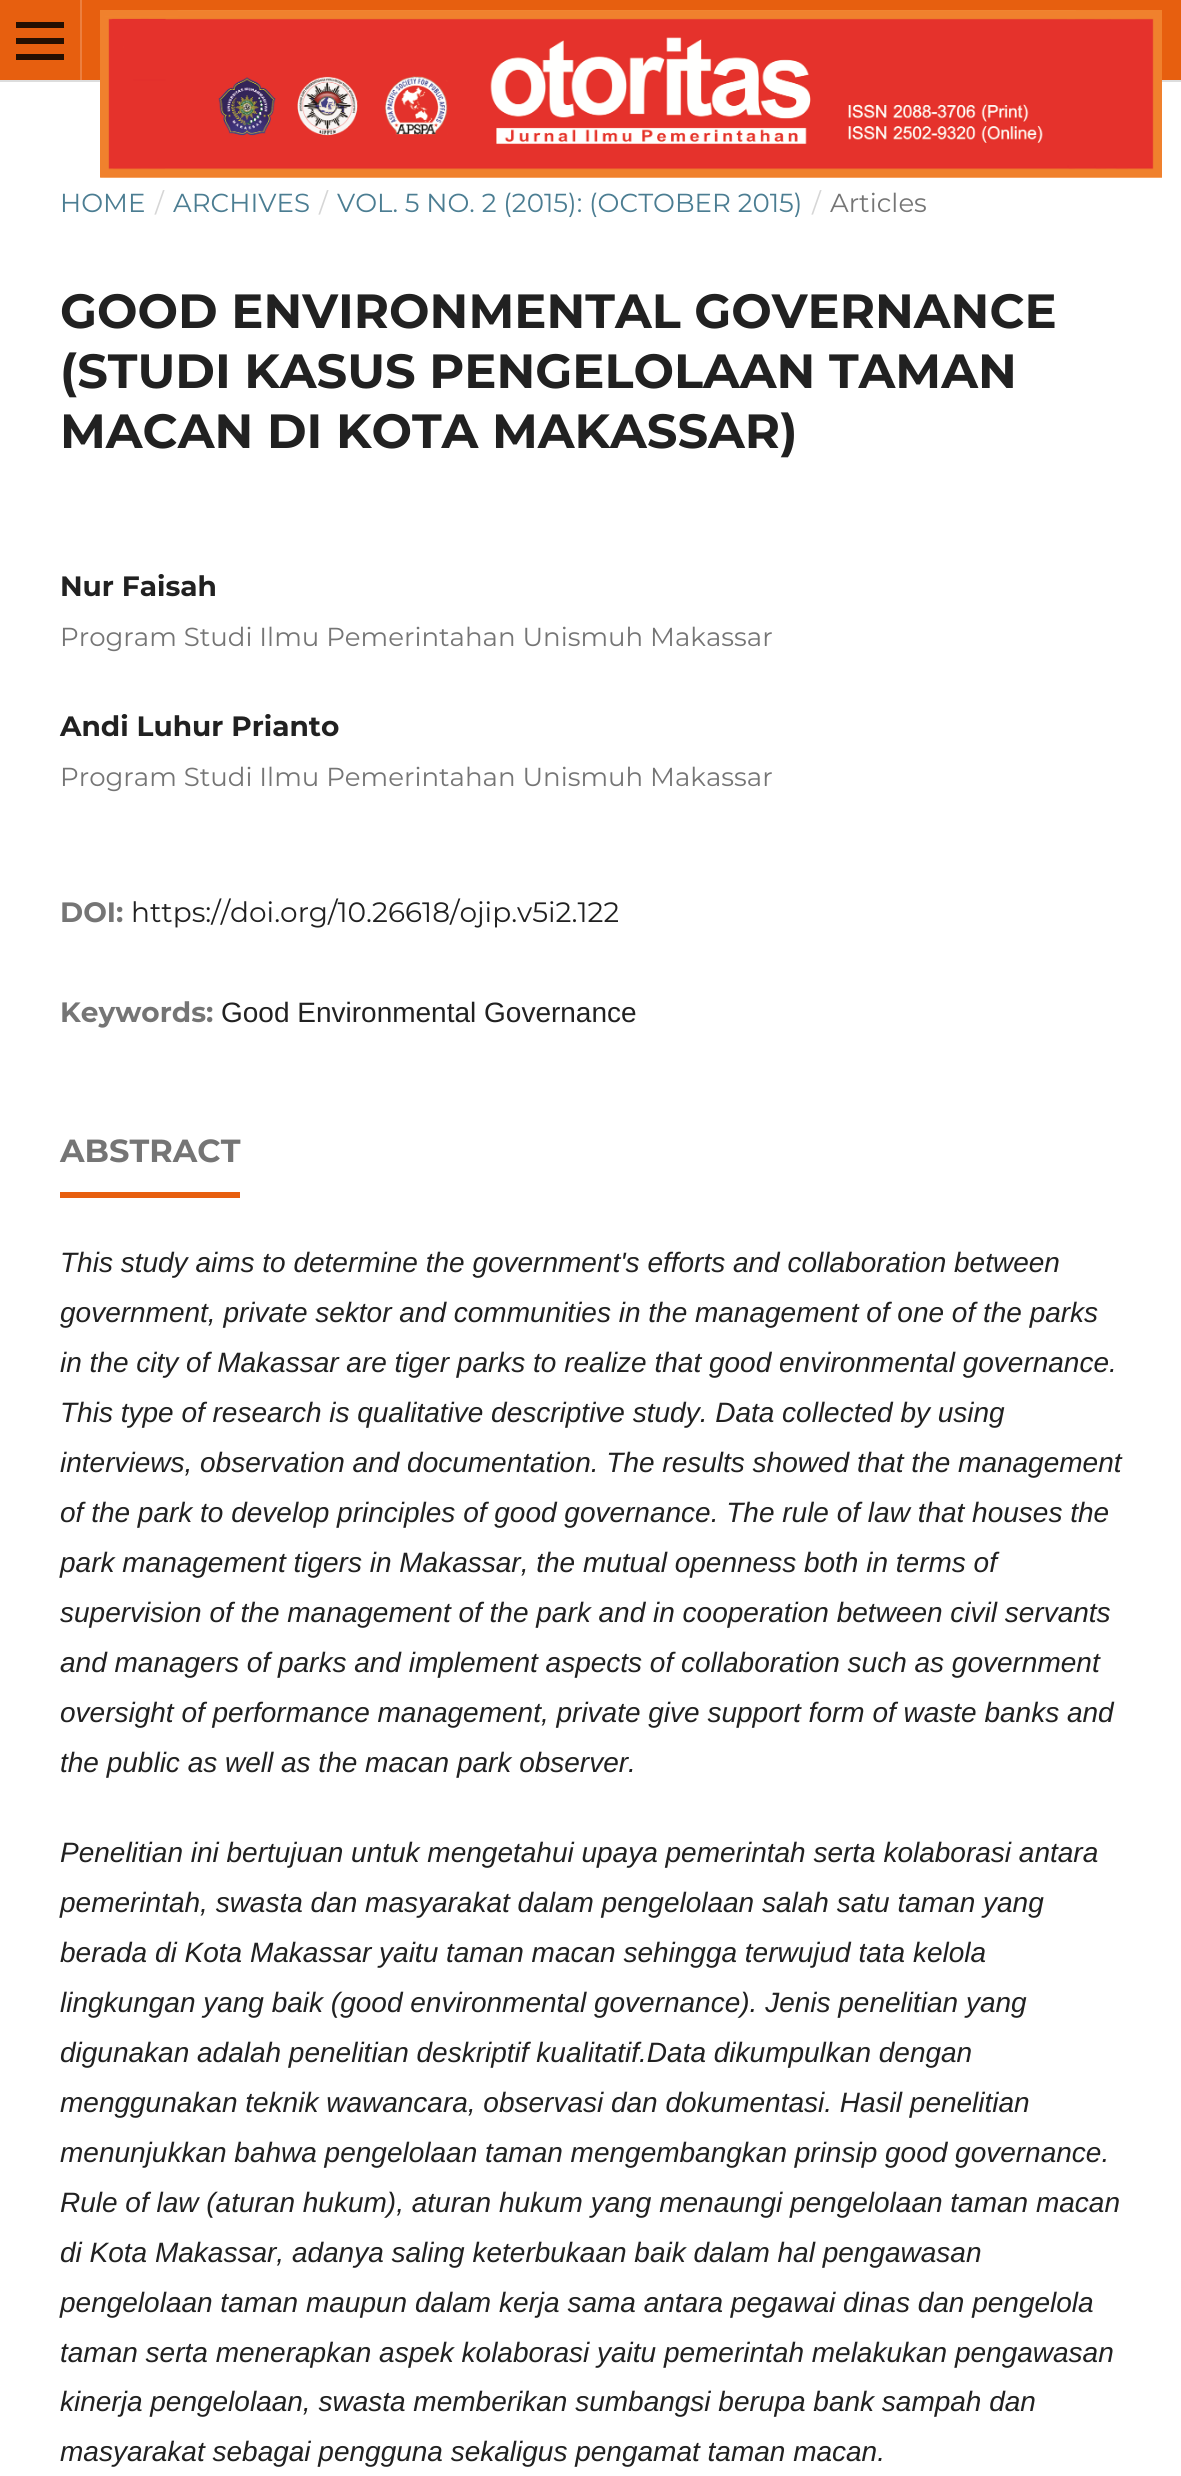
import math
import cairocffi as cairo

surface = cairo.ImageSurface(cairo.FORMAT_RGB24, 1181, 2476)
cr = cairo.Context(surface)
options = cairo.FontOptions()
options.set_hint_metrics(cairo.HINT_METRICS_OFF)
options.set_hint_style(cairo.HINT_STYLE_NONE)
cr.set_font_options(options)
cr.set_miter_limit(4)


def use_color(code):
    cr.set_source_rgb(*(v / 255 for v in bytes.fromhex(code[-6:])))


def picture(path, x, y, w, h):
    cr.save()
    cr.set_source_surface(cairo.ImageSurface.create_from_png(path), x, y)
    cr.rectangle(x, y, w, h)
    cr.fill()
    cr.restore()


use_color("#ffffff")
cr.paint()
use_color("#e75f0f")
cr.rectangle(0, 0, 1181, 80)
cr.fill()
use_color("#dddddd")
cr.rectangle(0, 80, 1181, 2)
cr.fill()
use_color("#ec7f3f")
cr.rectangle(80, 0, 2, 80)
cr.fill()
use_color("#250f02")
cr.rectangle(16, 54, 48, 6)
cr.fill()
cr.rectangle(16, 22, 48, 6)
cr.fill()
cr.rectangle(16, 38, 48, 6)
cr.fill()
picture("img1.png", 100, 10, 1062, 168)
cr.select_font_face("Montserrat")
cr.set_font_size(26.05)
use_color("#4b7d92")
cr.move_to(60, 212)
cr.show_text("HOME")
use_color("#d6d6d6")
cr.move_to(155, 212)
cr.show_text("/")
use_color("#4b7d92")
cr.move_to(173, 212)
cr.show_text("ARCHIVES")
use_color("#d6d6d6")
cr.move_to(319, 212)
cr.show_text("/")
use_color("#4b7d92")
cr.move_to(337, 212)
cr.show_text("VOL. 5 NO. 2 (2015): (OCTOBER 2015)")
use_color("#d6d6d6")
cr.move_to(812, 212)
cr.show_text("/")
use_color("#757575")
cr.move_to(830, 212)
cr.show_text("Articles")
cr.select_font_face("Montserrat", cairo.FONT_SLANT_NORMAL, cairo.FONT_WEIGHT_BOLD)
cr.set_font_size(48)
use_color("#212121")
cr.move_to(60, 328)
cr.show_text("GOOD ENVIRONMENTAL GOVERNANCE")
cr.move_to(60, 388)
cr.show_text("(STUDI KASUS PENGELOLAAN TAMAN")
cr.move_to(60, 448)
cr.show_text("MACAN DI KOTA MAKASSAR)")
cr.set_font_size(28)
cr.move_to(60, 596)
cr.show_text("Nur Faisah")
cr.select_font_face("Montserrat")
cr.set_font_size(26.05)
use_color("#757575")
cr.move_to(60, 646)
cr.show_text("Program Studi Ilmu Pemerintahan Unismuh Makassar")
cr.select_font_face("Montserrat", cairo.FONT_SLANT_NORMAL, cairo.FONT_WEIGHT_BOLD)
cr.set_font_size(28)
use_color("#212121")
cr.move_to(60, 736)
cr.show_text("Andi Luhur Prianto")
cr.select_font_face("Montserrat")
cr.set_font_size(26.05)
use_color("#757575")
cr.move_to(60, 786)
cr.show_text("Program Studi Ilmu Pemerintahan Unismuh Makassar")
cr.select_font_face("Montserrat", cairo.FONT_SLANT_NORMAL, cairo.FONT_WEIGHT_BOLD)
cr.set_font_size(28)
cr.move_to(60, 922)
cr.show_text("DOI:")
cr.select_font_face("Montserrat")
use_color("#212121")
cr.move_to(131, 922)
cr.show_text("https://doi.org/10.26618/ojip.v5i2.122")
cr.select_font_face("Montserrat", cairo.FONT_SLANT_NORMAL, cairo.FONT_WEIGHT_BOLD)
use_color("#757575")
cr.move_to(60, 1022)
cr.show_text("Keywords:")
cr.select_font_face("Liberation Sans")
use_color("#212121")
cr.move_to(221, 1022)
cr.show_text("Good Environmental Governance")
use_color("#e75f0f")
cr.rectangle(60, 1192, 180, 6)
cr.fill()
cr.select_font_face("Montserrat", cairo.FONT_SLANT_NORMAL, cairo.FONT_WEIGHT_BOLD)
cr.set_font_size(32)
use_color("#757575")
cr.move_to(60, 1162)
cr.show_text("ABSTRACT")
cr.select_font_face("Liberation Sans", cairo.FONT_SLANT_ITALIC)
cr.set_font_size(28)
use_color("#212121")
cr.move_to(60, 1272)
cr.show_text("This study aims to determine the government's efforts and collaboration between")
cr.move_to(60, 1322)
cr.show_text("government, private sektor and communities in the management of one of the parks")
cr.move_to(60, 1372)
cr.show_text("in the city of Makassar are tiger parks to realize that good environmental governance.")
cr.move_to(60, 1422)
cr.show_text("This type of research is qualitative descriptive study. Data collected by using")
cr.move_to(60, 1472)
cr.show_text("interviews, observation and documentation. The results showed that the management")
cr.move_to(60, 1522)
cr.show_text("of the park to develop principles of good governance. The rule of law that houses the")
cr.move_to(60, 1572)
cr.show_text("park management tigers in Makassar, the mutual openness both in terms of")
cr.move_to(60, 1622)
cr.show_text("supervision of the management of the park and in cooperation between civil servants")
cr.move_to(60, 1672)
cr.show_text("and managers of parks and implement aspects of collaboration such as government")
cr.move_to(60, 1722)
cr.show_text("oversight of performance management, private give support form of waste banks and")
cr.move_to(60, 1772)
cr.show_text("the public as well as the macan park observer.")
cr.move_to(60, 1862)
cr.show_text("Penelitian ini bertujuan untuk mengetahui upaya pemerintah serta kolaborasi antara")
cr.move_to(60, 1912)
cr.show_text("pemerintah, swasta dan masyarakat dalam pengelolaan salah satu taman yang")
cr.move_to(60, 1962)
cr.show_text("berada di Kota Makassar yaitu taman macan sehingga terwujud tata kelola")
cr.move_to(60, 2012)
cr.show_text("lingkungan yang baik (good environmental governance). Jenis penelitian yang")
cr.move_to(60, 2062)
cr.show_text("digunakan adalah penelitian deskriptif kualitatif.Data dikumpulkan dengan")
cr.move_to(60, 2112)
cr.show_text("menggunakan teknik wawancara, observasi dan dokumentasi. Hasil penelitian")
cr.move_to(60, 2162)
cr.show_text("menunjukkan bahwa pengelolaan taman mengembangkan prinsip good governance.")
cr.move_to(60, 2212)
cr.show_text("Rule of law (aturan hukum), aturan hukum yang menaungi pengelolaan taman macan")
cr.move_to(60, 2262)
cr.show_text("di Kota Makassar, adanya saling keterbukaan baik dalam hal pengawasan")
cr.move_to(60, 2312)
cr.show_text("pengelolaan taman maupun dalam kerja sama antara pegawai dinas dan pengelola")
cr.move_to(60, 2362)
cr.show_text("taman serta menerapkan aspek kolaborasi yaitu pemerintah melakukan pengawasan")
cr.move_to(60, 2411)
cr.show_text("kinerja pengelolaan, swasta memberikan sumbangsi berupa bank sampah dan")
cr.move_to(60, 2461)
cr.show_text("masyarakat sebagai pengguna sekaligus pengamat taman macan.")
surface.write_to_png("result.png")
